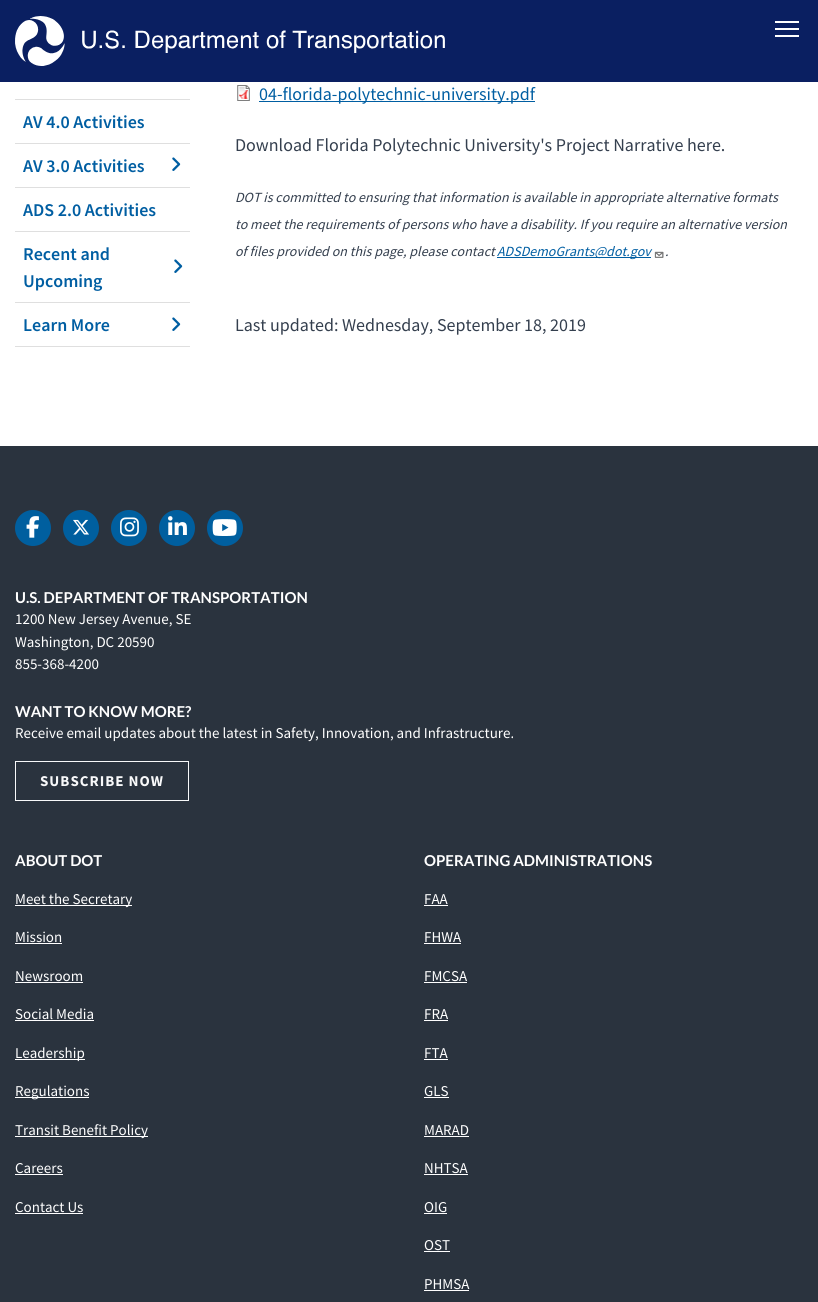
import math
import cairocffi as cairo

surface = cairo.ImageSurface(cairo.FORMAT_RGB24, 818, 1302)
cr = cairo.Context(surface)
options = cairo.FontOptions()
options.set_hint_metrics(cairo.HINT_METRICS_OFF)
options.set_hint_style(cairo.HINT_STYLE_NONE)
cr.set_font_options(options)
cr.set_miter_limit(4)


def use_color(code):
    cr.set_source_rgb(*(v / 255 for v in bytes.fromhex(code[-6:])))


def spaced_text(x, y, s, letter, word):
    cr.move_to(x, y)
    for ch in s:
        cr.show_text(ch)
        cr.rel_move_to(letter + word * (ch == ' '), 0)


def picture(path, x, y, w, h):
    cr.save()
    cr.set_source_surface(cairo.ImageSurface.create_from_png(path), x, y)
    cr.rectangle(x, y, w, h)
    cr.fill()
    cr.restore()


use_color("#2a333e")
cr.paint()
use_color("#0a1f61")
cr.rectangle(0, 0, 818, 82)
cr.fill()
picture("img1.png", 15, 16, 430, 50)
use_color("#ffffff")
cr.rectangle(775, 21, 24, 2)
cr.fill()
cr.rectangle(775, 28, 24, 2)
cr.fill()
cr.rectangle(775, 35, 24, 2)
cr.fill()
cr.rectangle(0, 82, 818, 364)
cr.fill()
use_color("#dfdfdf")
cr.rectangle(15, 99, 175, 1)
cr.fill()
cr.rectangle(15, 143, 175, 1)
cr.fill()
cr.select_font_face("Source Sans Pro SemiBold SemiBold")
cr.set_font_size(18)
use_color("#005ea2")
cr.move_to(23, 128)
cr.show_text("AV 4.0 Activities")
use_color("#dfdfdf")
cr.rectangle(15, 187, 175, 1)
cr.fill()
use_color("#005ea2")
cr.move_to(23, 172)
cr.show_text("AV 3.0 Activities")
picture("img2.png", 172, 157, 9, 14)
use_color("#dfdfdf")
cr.rectangle(15, 231, 175, 1)
cr.fill()
use_color("#005ea2")
cr.move_to(23, 216)
cr.show_text("ADS 2.0 Activities")
use_color("#dfdfdf")
cr.rectangle(15, 302, 175, 1)
cr.fill()
use_color("#005ea2")
cr.move_to(23, 260)
cr.show_text("Recent and")
picture("img2.png", 174, 259, 9, 14)
cr.move_to(23, 287)
cr.show_text("Upcoming")
use_color("#dfdfdf")
cr.rectangle(15, 346, 175, 1)
cr.fill()
use_color("#005ea2")
cr.move_to(23, 331)
cr.show_text("Learn More")
picture("img2.png", 172, 317, 9, 14)
picture("img3.png", 237, 85, 13, 16)
cr.rectangle(259, 101, 276, 1)
cr.fill()
cr.select_font_face("Source Sans Pro")
cr.move_to(259, 100)
cr.show_text("04-florida-polytechnic-university.pdf")
use_color("#343f4e")
cr.move_to(235, 151)
cr.show_text("Download Florida Polytechnic University's Project Narrative here.")
cr.select_font_face("Source Sans Pro", cairo.FONT_SLANT_ITALIC)
cr.set_font_size(14)
cr.move_to(235, 202)
cr.show_text("DOT is committed to ensuring that information is available in appropriate alternative formats")
cr.move_to(235, 229)
cr.show_text("to meet the requirements of persons who have a disability. If you require an alternative version")
cr.move_to(235, 256)
cr.show_text("of files provided on this page, please contact")
use_color("#005ea2")
cr.rectangle(497, 257, 154, 1)
cr.fill()
cr.move_to(497, 256)
cr.show_text("ADSDemoGrants@dot.gov")
picture("img4.png", 654, 251, 10, 7)
use_color("#343f4e")
cr.move_to(665, 256)
cr.show_text(".")
cr.select_font_face("Source Sans Pro")
cr.set_font_size(18)
cr.move_to(235, 331)
cr.show_text("Last updated: Wednesday, September 18, 2019")
use_color("#005f9f")
cr.new_path()
cr.arc(33, 528, 18, 0, 2 * math.pi)
cr.fill()
picture("img5.png", 26, 516, 13, 22)
cr.arc(81, 528, 18, 0, 2 * math.pi)
cr.fill()
picture("img6.png", 73, 519, 16, 16)
cr.arc(129, 528, 18, 0, 2 * math.pi)
cr.fill()
picture("img7.png", 120, 517, 19, 20)
cr.arc(177, 528, 18, 0, 2 * math.pi)
cr.fill()
picture("img8.png", 168, 516, 19, 19)
cr.arc(225, 528, 18, 0, 2 * math.pi)
cr.fill()
picture("img9.png", 212, 519, 25, 17)
cr.select_font_face("Lato", cairo.FONT_SLANT_NORMAL, cairo.FONT_WEIGHT_BOLD)
cr.set_font_size(15)
use_color("#ffffff")
cr.move_to(15, 603)
cr.show_text("U.S. DEPARTMENT OF TRANSPORTATION")
cr.select_font_face("Source Sans Pro")
cr.move_to(15, 624)
cr.show_text("1200 New Jersey Avenue, SE")
cr.move_to(15, 647)
cr.show_text("Washington, DC 20590")
cr.move_to(15, 669)
cr.show_text("855-368-4200")
cr.select_font_face("Lato", cairo.FONT_SLANT_NORMAL, cairo.FONT_WEIGHT_BOLD)
cr.move_to(15, 717)
cr.show_text("WANT TO KNOW MORE?")
cr.select_font_face("Source Sans Pro")
cr.move_to(15, 738)
cr.show_text("Receive email updates about the latest in Safety, Innovation, and Infrastructure.")
cr.rectangle(15.5, 761.5, 173, 39)
use_color("#f8f9fa")
cr.set_line_width(1)
cr.stroke()
cr.select_font_face("Source Sans Pro", cairo.FONT_SLANT_NORMAL, cairo.FONT_WEIGHT_BOLD)
spaced_text(40, 786, "SUBSCRIBE NOW", 1, 0)
cr.select_font_face("Lato", cairo.FONT_SLANT_NORMAL, cairo.FONT_WEIGHT_BOLD)
use_color("#ffffff")
cr.move_to(15, 866)
cr.show_text("ABOUT DOT")
cr.rectangle(15, 905, 117, 1)
cr.fill()
cr.select_font_face("Source Sans Pro")
cr.move_to(15, 904)
cr.show_text("Meet the Secretary")
cr.move_to(15, 942)
cr.show_text("Mission")
cr.rectangle(15, 943, 47, 1)
cr.fill()
cr.move_to(15, 981)
cr.show_text("Newsroom")
cr.rectangle(15, 982, 68, 1)
cr.fill()
cr.move_to(15, 1019)
cr.show_text("Social Media")
cr.rectangle(15, 1020, 79, 1)
cr.fill()
cr.rectangle(15, 1059, 70, 1)
cr.fill()
cr.move_to(15, 1058)
cr.show_text("Leadership")
cr.rectangle(15, 1097, 74, 1)
cr.fill()
cr.move_to(15, 1096)
cr.show_text("Regulations")
cr.rectangle(15, 1136, 133, 1)
cr.fill()
cr.move_to(15, 1135)
cr.show_text("Transit Benefit Policy")
cr.move_to(15, 1173)
cr.show_text("Careers")
cr.rectangle(15, 1174, 48, 1)
cr.fill()
cr.move_to(15, 1212)
cr.show_text("Contact Us")
cr.rectangle(15, 1213, 68, 1)
cr.fill()
cr.select_font_face("Lato", cairo.FONT_SLANT_NORMAL, cairo.FONT_WEIGHT_BOLD)
cr.move_to(424, 866)
cr.show_text("OPERATING ADMINISTRATIONS")
cr.select_font_face("Source Sans Pro")
cr.move_to(424, 904)
cr.show_text("FAA")
cr.rectangle(424, 905, 24, 1)
cr.fill()
cr.move_to(424, 942)
cr.show_text("FHWA")
cr.rectangle(424, 943, 37, 1)
cr.fill()
cr.move_to(424, 981)
cr.show_text("FMCSA")
cr.rectangle(424, 982, 43, 1)
cr.fill()
cr.move_to(424, 1019)
cr.show_text("FRA")
cr.rectangle(424, 1020, 24, 1)
cr.fill()
cr.move_to(424, 1058)
cr.show_text("FTA")
cr.rectangle(424, 1059, 24, 1)
cr.fill()
cr.move_to(424, 1096)
cr.show_text("GLS")
cr.rectangle(424, 1097, 25, 1)
cr.fill()
cr.move_to(424, 1135)
cr.show_text("MARAD")
cr.rectangle(424, 1136, 45, 1)
cr.fill()
cr.move_to(424, 1173)
cr.show_text("NHTSA")
cr.rectangle(424, 1174, 44, 1)
cr.fill()
cr.move_to(424, 1212)
cr.show_text("OIG")
cr.rectangle(424, 1213, 23, 1)
cr.fill()
cr.move_to(424, 1250)
cr.show_text("OST")
cr.rectangle(424, 1251, 26, 1)
cr.fill()
cr.move_to(424, 1289)
cr.show_text("PHMSA")
cr.rectangle(424, 1290, 45, 1)
cr.fill()
surface.write_to_png("result.png")
